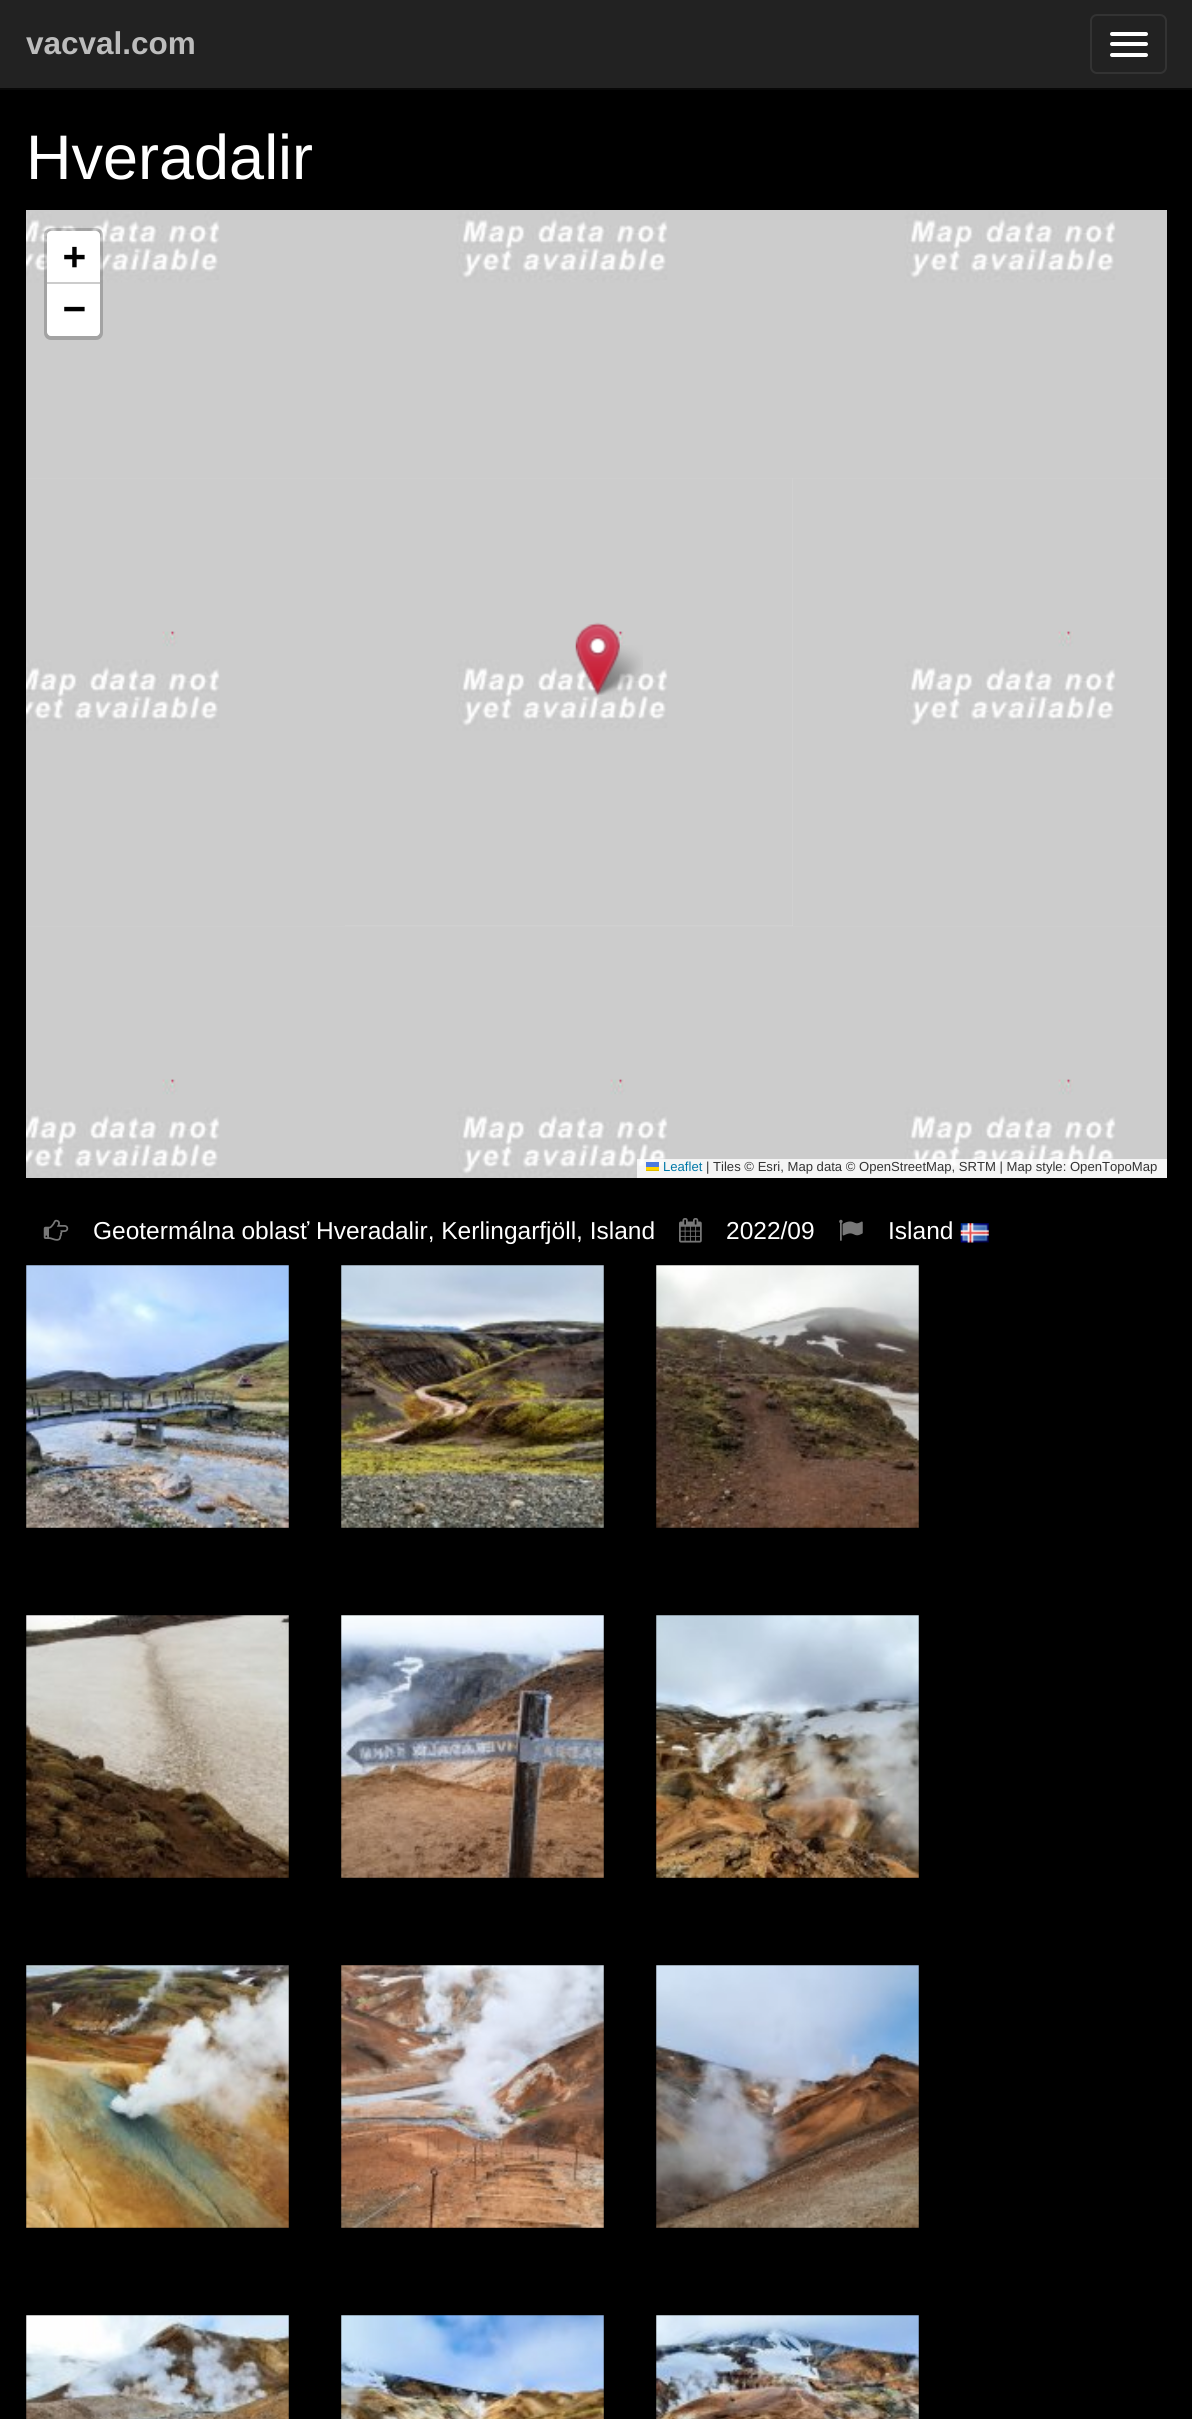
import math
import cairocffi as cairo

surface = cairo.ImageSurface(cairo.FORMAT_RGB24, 1192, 2419)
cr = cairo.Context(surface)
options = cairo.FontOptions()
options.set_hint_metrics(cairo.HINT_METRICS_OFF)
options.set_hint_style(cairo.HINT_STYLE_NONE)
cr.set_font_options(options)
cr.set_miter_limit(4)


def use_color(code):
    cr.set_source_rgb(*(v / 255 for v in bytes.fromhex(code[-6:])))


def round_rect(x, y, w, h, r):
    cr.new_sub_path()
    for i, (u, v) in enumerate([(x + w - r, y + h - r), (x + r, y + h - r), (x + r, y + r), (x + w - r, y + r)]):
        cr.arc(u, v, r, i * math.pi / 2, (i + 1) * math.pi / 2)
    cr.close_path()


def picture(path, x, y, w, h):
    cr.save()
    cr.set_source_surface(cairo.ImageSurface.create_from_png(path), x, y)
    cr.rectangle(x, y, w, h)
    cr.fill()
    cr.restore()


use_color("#000000")
cr.paint()
use_color("#222222")
cr.rectangle(0, 0, 1192, 88)
cr.fill()
use_color("#080808")
cr.rectangle(0, 88, 1192, 2)
cr.fill()
cr.select_font_face("Liberation Sans", cairo.FONT_SLANT_NORMAL, cairo.FONT_WEIGHT_BOLD)
cr.set_font_size(31.5)
use_color("#bdbdbd")
cr.move_to(26, 54)
cr.show_text("vacval.com")
round_rect(1091, 15, 75, 58, 6)
use_color("#333333")
cr.stroke()
use_color("#ffffff")
round_rect(1110, 32, 38, 4, 2)
cr.fill()
round_rect(1110, 42, 38, 4, 2)
cr.fill()
round_rect(1110, 53, 38, 4, 2)
cr.fill()
cr.select_font_face("Liberation Sans")
cr.set_font_size(63)
cr.move_to(26, 179)
cr.show_text("Hveradalir")
use_color("#dddddd")
cr.rectangle(26, 478, 1141, 449)
cr.fill()
picture("img1.png", 26, 210, 319, 268)
picture("img2.png", 345, 210, 448, 268)
picture("img3.png", 793, 210, 374, 268)
picture("img4.png", 26, 478, 319, 448)
picture("img5.png", 345, 478, 448, 448)
picture("img6.png", 793, 478, 374, 448)
picture("img7.png", 26, 926, 319, 252)
picture("img8.png", 345, 926, 448, 252)
picture("img9.png", 793, 926, 374, 252)
picture("img11.png", 591, 645, 52, 50)
picture("img10.png", 575, 622, 45, 74)
round_rect(46, 230, 55, 108, 5)
cr.set_source_rgba(0, 0, 0, 0.2)
cr.set_line_width(4)
cr.stroke()
use_color("#ffffff")
cr.new_path()
cr.move_to(51, 231)
cr.line_to(96, 231)
cr.curve_to(98, 231, 100, 233, 100, 235)
cr.line_to(100, 284)
cr.line_to(47, 284)
cr.line_to(47, 235)
cr.curve_to(47, 233, 49, 231, 51, 231)
cr.close_path()
cr.fill()
use_color("#cccccc")
cr.rectangle(47, 282, 53, 2)
cr.fill()
cr.select_font_face("DejaVu Sans Mono", cairo.FONT_SLANT_NORMAL, cairo.FONT_WEIGHT_BOLD)
cr.set_font_size(38)
use_color("#000000")
cr.move_to(63, 269)
cr.show_text("+")
use_color("#ffffff")
cr.new_path()
cr.move_to(47, 284)
cr.line_to(100, 284)
cr.line_to(100, 332)
cr.curve_to(100, 334, 98, 336, 96, 336)
cr.line_to(51, 336)
cr.curve_to(49, 336, 47, 334, 47, 332)
cr.close_path()
cr.fill()
use_color("#000000")
cr.move_to(63, 321)
cr.show_text("−")
cr.set_source_rgba(1, 1, 1, 0.8)
cr.rectangle(637, 1159, 530, 19)
cr.fill()
cr.select_font_face("Liberation Sans")
cr.set_font_size(13.1)
use_color("#0078a8")
cr.move_to(663, 1171)
cr.show_text("Leaflet")
use_color("#4c7be1")
cr.rectangle(646, 1162, 13, 5)
cr.fill()
use_color("#ffd500")
cr.rectangle(646, 1167, 13, 3)
cr.fill()
use_color("#e0bc00")
cr.rectangle(646, 1170, 13, 1)
cr.fill()
use_color("#333333")
cr.move_to(706, 1171)
cr.show_text("| Tiles © Esri, Map data © OpenStreetMap, SRTM | Map style: OpenTopoMap")
picture("img12.png", 43, 1219, 26, 22)
cr.set_font_size(24.5)
use_color("#ffffff")
cr.move_to(93, 1239)
cr.show_text("Geotermálna oblasť Hveradalir, Kerlingarfjöll, Island")
picture("img13.png", 679, 1218, 23, 25)
cr.move_to(726, 1239)
cr.show_text("2022/09")
picture("img14.png", 839, 1219, 24, 22)
cr.move_to(888, 1239)
cr.show_text("Island")
picture("img15.png", 960, 1223, 29, 20)
picture("img16.png", 26, 1265, 263, 263)
picture("img17.png", 341, 1265, 263, 263)
picture("img18.png", 656, 1265, 263, 263)
picture("img19.png", 26, 1615, 263, 263)
picture("img20.png", 341, 1615, 263, 263)
picture("img21.png", 656, 1615, 263, 263)
picture("img22.png", 26, 1965, 263, 263)
picture("img23.png", 341, 1965, 263, 263)
picture("img24.png", 656, 1965, 263, 263)
picture("img25.png", 26, 2315, 263, 104)
picture("img26.png", 341, 2315, 263, 104)
picture("img27.png", 656, 2315, 263, 104)
surface.write_to_png("result.png")
